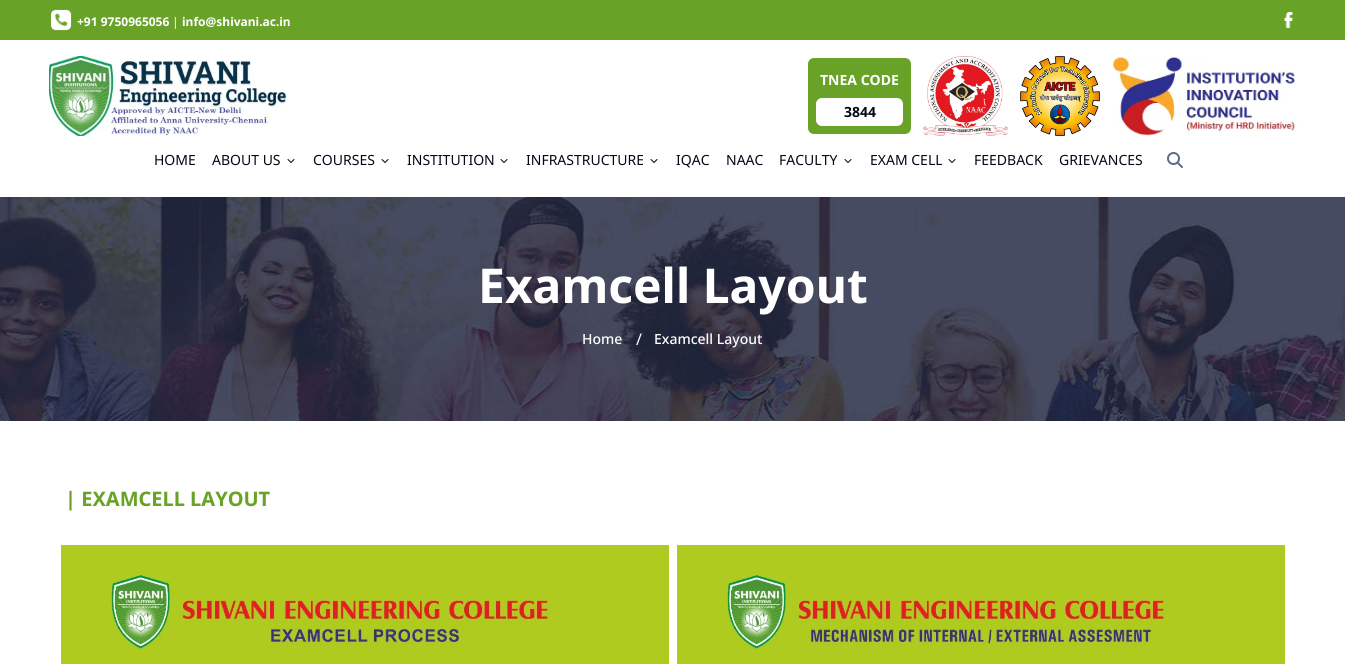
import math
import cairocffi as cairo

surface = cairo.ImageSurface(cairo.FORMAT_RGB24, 1345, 664)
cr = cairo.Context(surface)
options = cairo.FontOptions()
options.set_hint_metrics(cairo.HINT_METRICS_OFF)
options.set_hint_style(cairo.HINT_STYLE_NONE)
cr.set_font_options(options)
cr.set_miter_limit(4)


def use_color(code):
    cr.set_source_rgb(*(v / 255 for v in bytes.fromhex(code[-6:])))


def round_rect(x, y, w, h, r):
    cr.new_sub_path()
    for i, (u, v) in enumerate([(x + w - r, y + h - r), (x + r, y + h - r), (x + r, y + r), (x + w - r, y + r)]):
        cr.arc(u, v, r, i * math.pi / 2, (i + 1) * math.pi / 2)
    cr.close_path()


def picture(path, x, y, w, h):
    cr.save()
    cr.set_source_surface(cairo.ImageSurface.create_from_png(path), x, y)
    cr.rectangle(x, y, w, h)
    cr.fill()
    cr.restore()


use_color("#ffffff")
cr.paint()
use_color("#68a227")
cr.rectangle(0, 0, 1345, 40)
cr.fill()
picture("img1.png", 51, 9, 21, 22)
cr.select_font_face("Noto Sans", cairo.FONT_SLANT_NORMAL, cairo.FONT_WEIGHT_BOLD)
cr.set_font_size(12)
use_color("#ffffff")
cr.move_to(77, 26)
cr.show_text("+91 9750965056")
cr.select_font_face("Noto Sans")
cr.move_to(172, 26)
cr.show_text("|")
cr.select_font_face("Noto Sans", cairo.FONT_SLANT_NORMAL, cairo.FONT_WEIGHT_BOLD)
cr.move_to(182, 26)
cr.show_text("info@shivani.ac.in")
picture("img2.png", 1283, 12, 11, 16)
picture("img3.png", 49, 56, 239, 80)
use_color("#68a227")
round_rect(808, 58, 103, 76, 6)
cr.fill()
cr.set_font_size(14)
use_color("#ffffff")
cr.move_to(820, 85)
cr.show_text("TNEA CODE")
round_rect(816, 98, 87, 28, 6)
cr.fill()
use_color("#020817")
cr.move_to(844, 117)
cr.show_text("3844")
picture("img4.png", 923, 56, 85, 80)
picture("img5.png", 1020, 56, 80, 80)
picture("img6.png", 1112, 56, 185, 80)
cr.select_font_face("Noto Sans")
cr.move_to(154, 165)
cr.show_text("HOME")
cr.move_to(212, 165)
cr.show_text("ABOUT US")
cr.new_path()
cr.move_to(288, 159.5)
cr.line_to(291, 162.5)
cr.line_to(294, 159.5)
cr.set_line_width(1)
cr.set_line_cap(cairo.LINE_CAP_ROUND)
cr.set_line_join(cairo.LINE_JOIN_ROUND)
cr.stroke()
cr.move_to(313, 165)
cr.show_text("COURSES")
cr.new_path()
cr.move_to(382, 159.5)
cr.line_to(385, 162.5)
cr.line_to(388, 159.5)
cr.stroke()
cr.move_to(407, 165)
cr.show_text("INSTITUTION")
cr.new_path()
cr.move_to(501, 159.5)
cr.line_to(504, 162.5)
cr.line_to(507, 159.5)
cr.stroke()
cr.move_to(526, 165)
cr.show_text("INFRASTRUCTURE")
cr.new_path()
cr.move_to(651, 159.5)
cr.line_to(654, 162.5)
cr.line_to(657, 159.5)
cr.stroke()
cr.move_to(676, 165)
cr.show_text("IQAC")
cr.move_to(726, 165)
cr.show_text("NAAC")
cr.move_to(779, 165)
cr.show_text("FACULTY")
cr.new_path()
cr.move_to(845, 159.5)
cr.line_to(848, 162.5)
cr.line_to(851, 159.5)
cr.stroke()
cr.move_to(870, 165)
cr.show_text("EXAM CELL")
cr.new_path()
cr.move_to(949, 159.5)
cr.line_to(952, 162.5)
cr.line_to(955, 159.5)
cr.stroke()
cr.move_to(974, 165)
cr.show_text("FEEDBACK")
cr.move_to(1059, 165)
cr.show_text("GRIEVANCES")
picture("img7.png", 1167, 152, 16, 16)
picture("img8.png", 0, 197, 1345, 224)
cr.select_font_face("Noto Sans", cairo.FONT_SLANT_NORMAL, cairo.FONT_WEIGHT_BOLD)
cr.set_font_size(48)
use_color("#ffffff")
cr.move_to(478, 303)
cr.show_text("Examcell Layout")
cr.select_font_face("Noto Sans Medium")
cr.set_font_size(14)
cr.move_to(582, 344)
cr.show_text("Home")
cr.select_font_face("Noto Sans")
cr.set_font_size(16)
cr.move_to(636, 345)
cr.show_text("/")
cr.select_font_face("Noto Sans Medium")
cr.set_font_size(14)
cr.move_to(654, 344)
cr.show_text("Examcell Layout")
cr.select_font_face("Noto Sans", cairo.FONT_SLANT_NORMAL, cairo.FONT_WEIGHT_BOLD)
cr.set_font_size(20)
use_color("#68a227")
cr.move_to(65, 506)
cr.show_text("| EXAMCELL LAYOUT")
picture("img9.png", 61, 545, 608, 119)
picture("img10.png", 677, 545, 608, 119)
surface.write_to_png("result.png")
